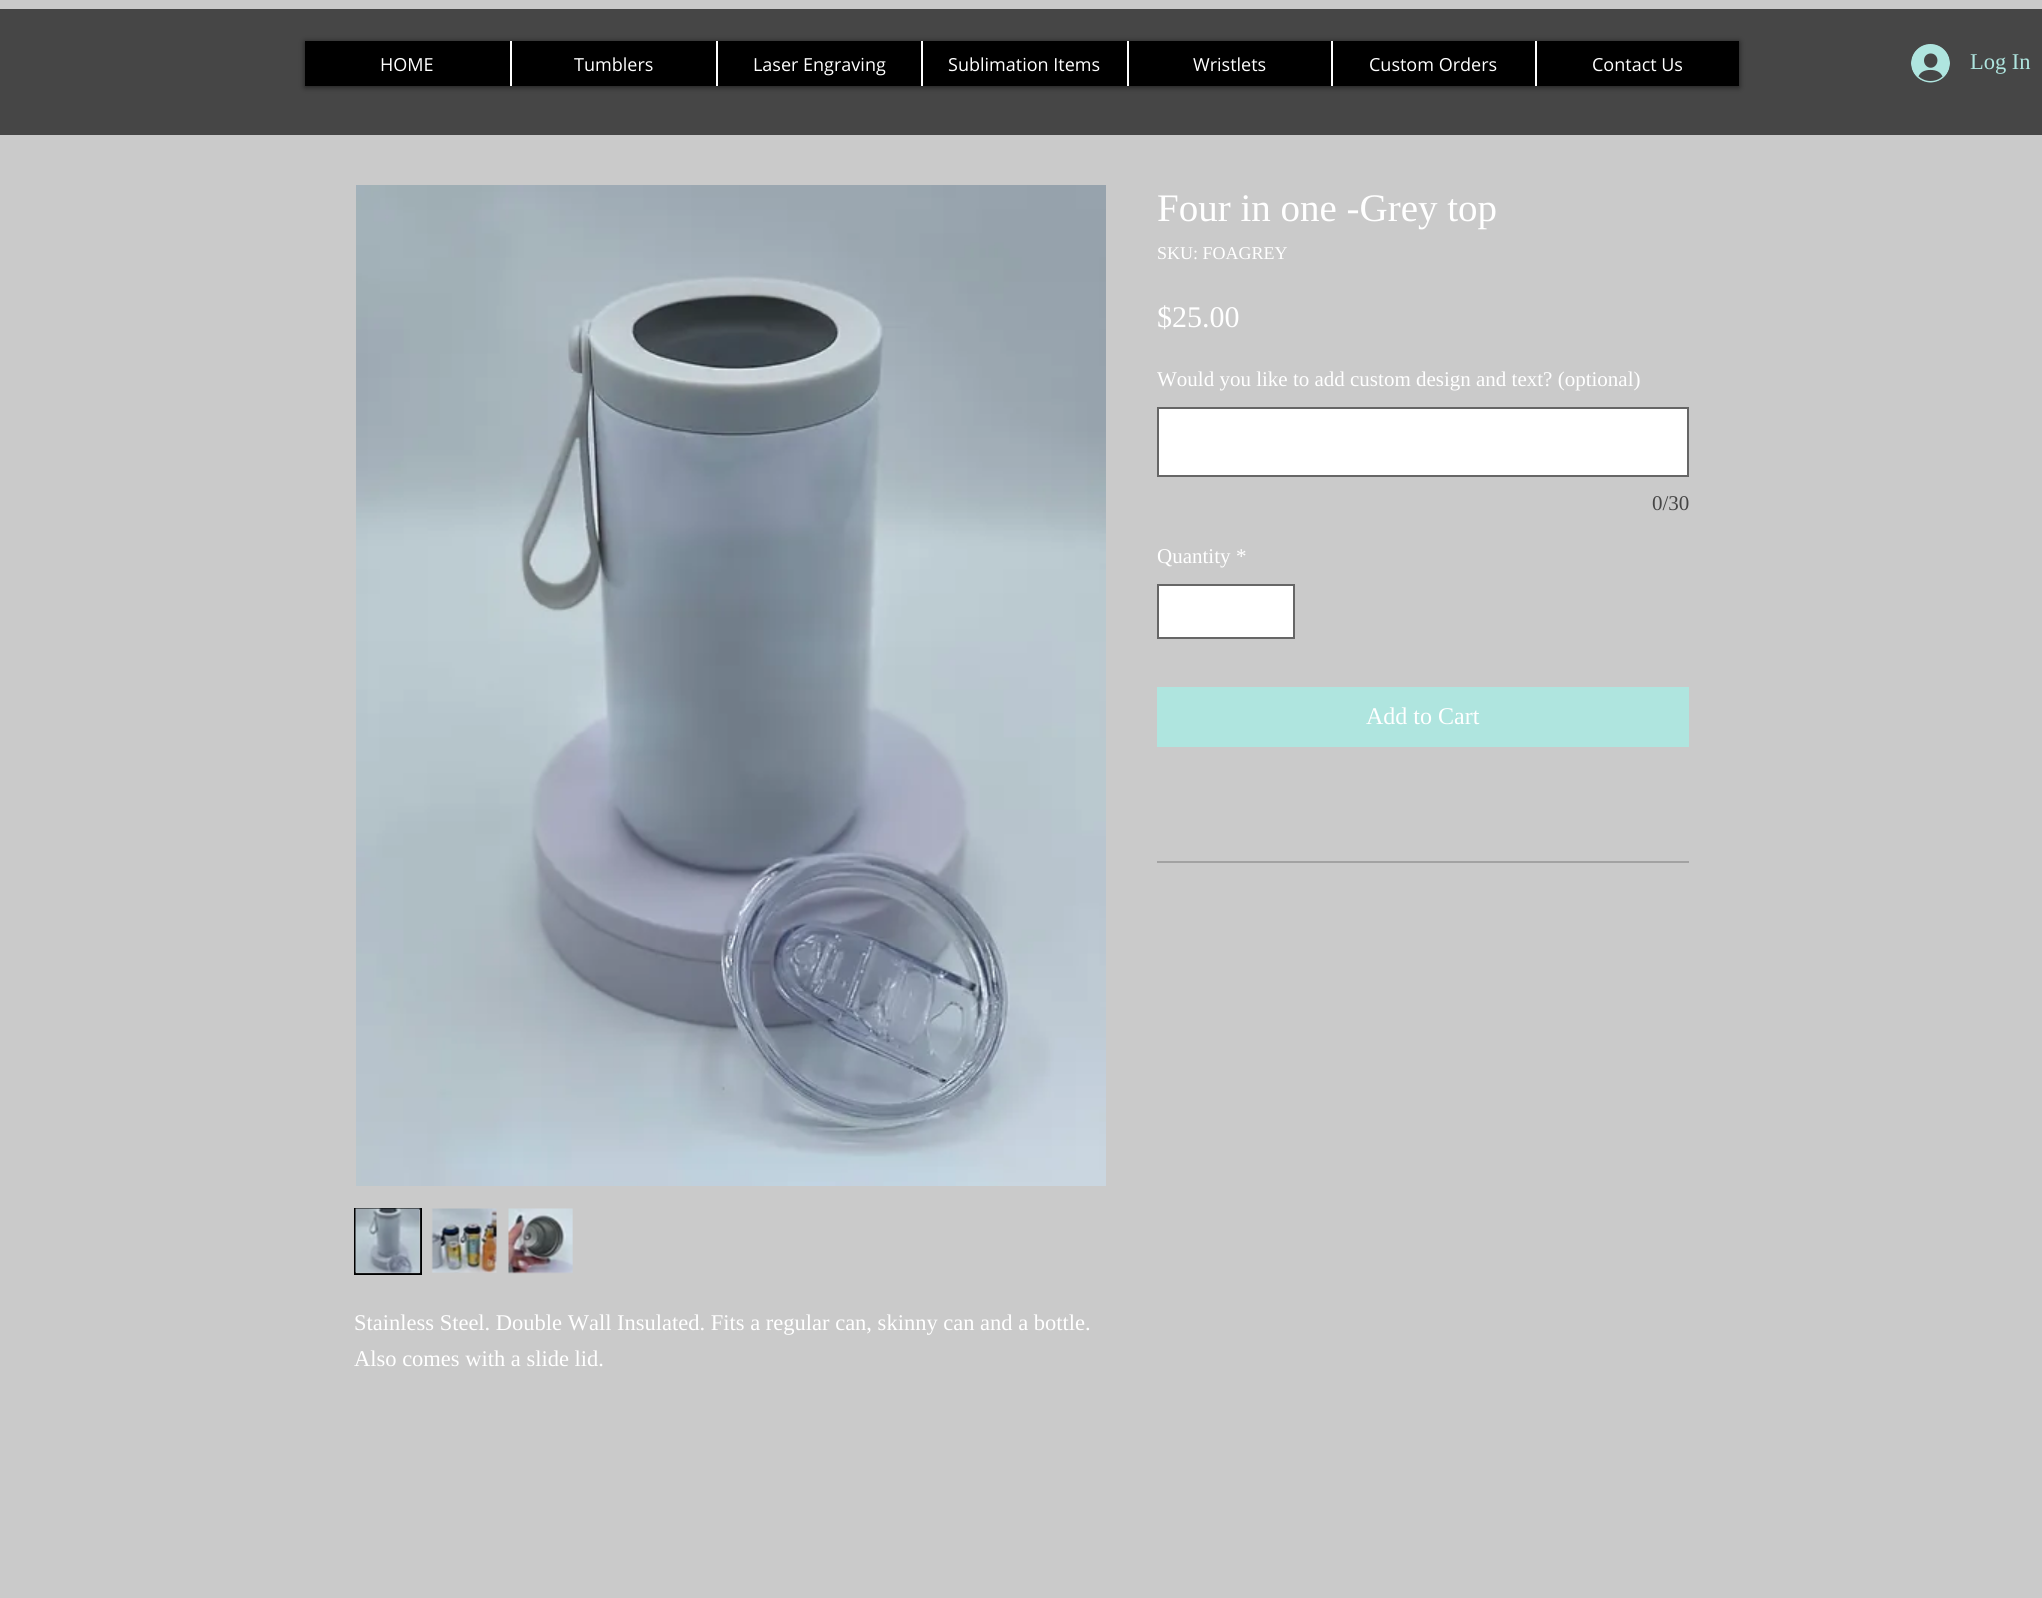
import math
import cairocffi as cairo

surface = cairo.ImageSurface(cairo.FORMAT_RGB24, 2042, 1598)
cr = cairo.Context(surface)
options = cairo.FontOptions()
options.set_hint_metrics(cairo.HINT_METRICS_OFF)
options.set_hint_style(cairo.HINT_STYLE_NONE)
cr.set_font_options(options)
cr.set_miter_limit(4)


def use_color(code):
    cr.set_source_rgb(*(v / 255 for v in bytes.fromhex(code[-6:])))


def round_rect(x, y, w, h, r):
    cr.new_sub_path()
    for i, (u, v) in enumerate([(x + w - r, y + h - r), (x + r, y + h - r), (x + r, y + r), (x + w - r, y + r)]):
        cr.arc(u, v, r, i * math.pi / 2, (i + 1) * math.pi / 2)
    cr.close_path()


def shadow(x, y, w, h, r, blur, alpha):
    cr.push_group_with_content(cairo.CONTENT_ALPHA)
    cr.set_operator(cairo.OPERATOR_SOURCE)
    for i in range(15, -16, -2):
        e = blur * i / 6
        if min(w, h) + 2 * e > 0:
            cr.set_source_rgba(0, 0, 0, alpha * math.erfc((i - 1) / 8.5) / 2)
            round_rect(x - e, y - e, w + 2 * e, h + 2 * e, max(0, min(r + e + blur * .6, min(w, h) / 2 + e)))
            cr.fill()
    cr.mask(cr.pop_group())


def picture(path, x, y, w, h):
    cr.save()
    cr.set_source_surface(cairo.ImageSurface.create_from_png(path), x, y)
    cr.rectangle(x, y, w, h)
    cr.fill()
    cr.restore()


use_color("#cacaca")
cr.paint()
use_color("#464646")
cr.rectangle(0, 9, 2042, 126)
cr.fill()
use_color("#000000")
shadow(305, 42, 1434, 45, 0, 3, 0.6)
use_color("#000000")
cr.rectangle(305, 41, 1434, 45)
cr.fill()
cr.select_font_face("Open Sans")
cr.set_font_size(18)
use_color("#ffffff")
cr.move_to(380, 71)
cr.show_text("HOME")
cr.rectangle(510, 41, 2, 45)
cr.fill()
cr.move_to(574, 71)
cr.show_text("Tumblers")
cr.rectangle(716, 41, 2, 45)
cr.fill()
cr.move_to(753, 71)
cr.show_text("Laser Engraving")
cr.rectangle(921, 41, 2, 45)
cr.fill()
cr.move_to(948, 71)
cr.show_text("Sublimation Items")
cr.rectangle(1127, 41, 2, 45)
cr.fill()
cr.move_to(1193, 71)
cr.show_text("Wristlets")
cr.rectangle(1331, 41, 2, 45)
cr.fill()
cr.move_to(1369, 71)
cr.show_text("Custom Orders")
cr.rectangle(1535, 41, 2, 45)
cr.fill()
cr.move_to(1592, 71)
cr.show_text("Contact Us")
picture("img1.png", 1911, 44, 39, 39)
cr.select_font_face("Liberation Serif")
cr.set_font_size(22.5)
use_color("#afe5df")
cr.move_to(1970, 69)
cr.show_text("Log In")
cr.set_font_size(39)
use_color("#ffffff")
cr.move_to(1157, 221)
cr.show_text("Four in one -Grey top")
cr.set_font_size(18)
cr.move_to(1157, 259)
cr.show_text("SKU: FOAGREY")
cr.set_font_size(30)
cr.move_to(1157, 327)
cr.show_text("$25.00")
cr.set_font_size(21)
cr.move_to(1157, 386)
cr.show_text("Would you like to add custom design and text? (optional)")
cr.rectangle(1158, 408, 530, 68)
cr.fill_preserve()
use_color("#666666")
cr.stroke()
use_color("#464646")
cr.move_to(1652, 510)
cr.show_text("0/30")
use_color("#ffffff")
cr.move_to(1157, 563)
cr.show_text("Quantity")
cr.move_to(1236, 563)
cr.show_text("*")
cr.rectangle(1158, 585, 136, 53)
cr.fill_preserve()
use_color("#666666")
cr.stroke()
use_color("#afe5df")
cr.rectangle(1157, 687, 532, 60)
cr.fill()
cr.set_font_size(24)
use_color("#ffffff")
cr.move_to(1366, 724)
cr.show_text("Add to Cart")
use_color("#a2a2a2")
cr.rectangle(1157, 861, 532, 2)
cr.fill()
picture("img2.png", 356, 185, 750, 1001)
cr.rectangle(355, 1209, 66, 65)
use_color("#000000")
cr.stroke()
picture("img3.png", 355, 1208, 66, 66)
picture("img4.png", 431, 1208, 66, 65)
picture("img5.png", 508, 1208, 65, 66)
cr.set_font_size(22.5)
use_color("#ffffff")
cr.move_to(354, 1330)
cr.show_text("Stainless Steel. Double Wall Insulated. Fits a regular can, skinny can and a bottle.")
cr.move_to(354, 1366)
cr.show_text("Also comes with a slide lid.")
surface.write_to_png("result.png")
